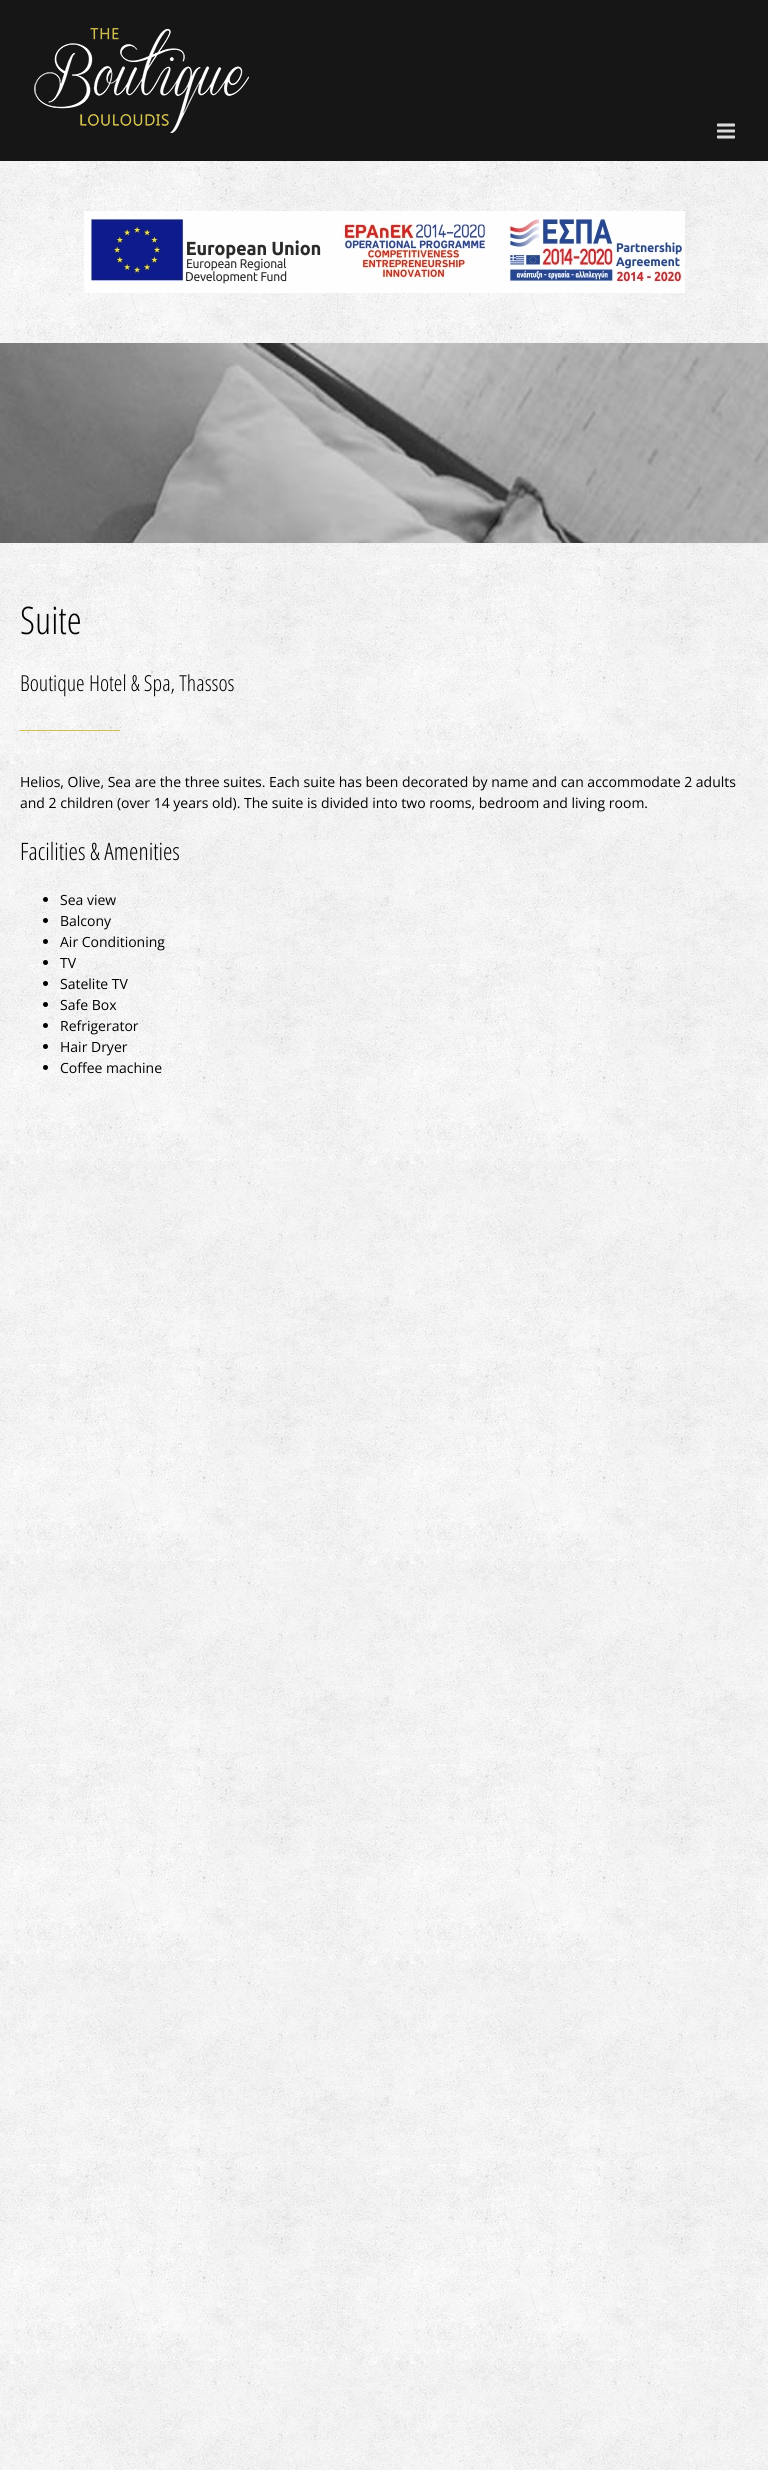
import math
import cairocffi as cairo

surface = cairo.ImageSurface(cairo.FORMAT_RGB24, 768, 2470)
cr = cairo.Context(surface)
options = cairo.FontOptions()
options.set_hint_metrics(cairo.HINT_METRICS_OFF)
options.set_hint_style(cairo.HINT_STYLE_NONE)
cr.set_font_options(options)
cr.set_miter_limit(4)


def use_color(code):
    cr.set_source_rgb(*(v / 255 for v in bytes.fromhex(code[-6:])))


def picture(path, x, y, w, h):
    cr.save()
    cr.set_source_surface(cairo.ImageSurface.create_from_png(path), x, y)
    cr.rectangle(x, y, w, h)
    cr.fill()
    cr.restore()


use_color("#ffffff")
cr.paint()
use_color("#161616")
cr.rectangle(0, 0, 768, 161)
cr.fill()
picture("img1.png", 34, 28, 215, 105)
picture("img2.png", 717, 123, 18, 16)
picture("img3.png", 0, 161, 768, 2309)
picture("img4.png", 84, 211, 601, 82)
picture("img5.png", 0, 343, 768, 200)
cr.select_font_face("Open Sans Condensed Light")
cr.set_font_size(38)
use_color("#000000")
cr.move_to(20, 634)
cr.show_text("Suite")
cr.set_font_size(22)
cr.move_to(20, 691)
cr.show_text("Boutique Hotel & Spa, Thassos")
use_color("#d4c14a")
cr.rectangle(20, 730, 100, 1)
cr.fill()
cr.select_font_face("Open Sans")
cr.set_font_size(14)
use_color("#000000")
cr.move_to(20, 787)
cr.show_text("Helios, Olive, Sea are the three suites. Each suite has been decorated by name and can accommodate 2 adults")
cr.move_to(20, 808)
cr.show_text("and 2 children (over 14 years old). The suite is divided into two rooms, bedroom and living room.")
cr.select_font_face("Open Sans Condensed Light")
cr.set_font_size(24)
cr.move_to(20, 860)
cr.show_text("Facilities & Amenities")
cr.new_path()
cr.arc(45.5, 899.5, 2.5, 0, 2 * math.pi)
cr.fill()
cr.select_font_face("Open Sans")
cr.set_font_size(14)
cr.move_to(60, 905)
cr.show_text("Sea view")
cr.new_path()
cr.arc(45.5, 920.5, 2.5, 0, 2 * math.pi)
cr.fill()
cr.move_to(60, 926)
cr.show_text("Balcony")
cr.new_path()
cr.arc(45.5, 941.5, 2.5, 0, 2 * math.pi)
cr.fill()
cr.move_to(60, 947)
cr.show_text("Air Conditioning")
cr.new_path()
cr.arc(45.5, 962.5, 2.5, 0, 2 * math.pi)
cr.fill()
cr.move_to(60, 968)
cr.show_text("TV")
cr.new_path()
cr.arc(45.5, 983.5, 2.5, 0, 2 * math.pi)
cr.fill()
cr.move_to(60, 989)
cr.show_text("Satelite TV")
cr.new_path()
cr.arc(45.5, 1004.5, 2.5, 0, 2 * math.pi)
cr.fill()
cr.move_to(60, 1010)
cr.show_text("Safe Box")
cr.new_path()
cr.arc(45.5, 1025.5, 2.5, 0, 2 * math.pi)
cr.fill()
cr.move_to(60, 1031)
cr.show_text("Refrigerator")
cr.new_path()
cr.arc(45.5, 1046.5, 2.5, 0, 2 * math.pi)
cr.fill()
cr.move_to(60, 1052)
cr.show_text("Hair Dryer")
cr.new_path()
cr.arc(45.5, 1067.5, 2.5, 0, 2 * math.pi)
cr.fill()
cr.move_to(60, 1073)
cr.show_text("Coffee machine")
surface.write_to_png("result.png")
